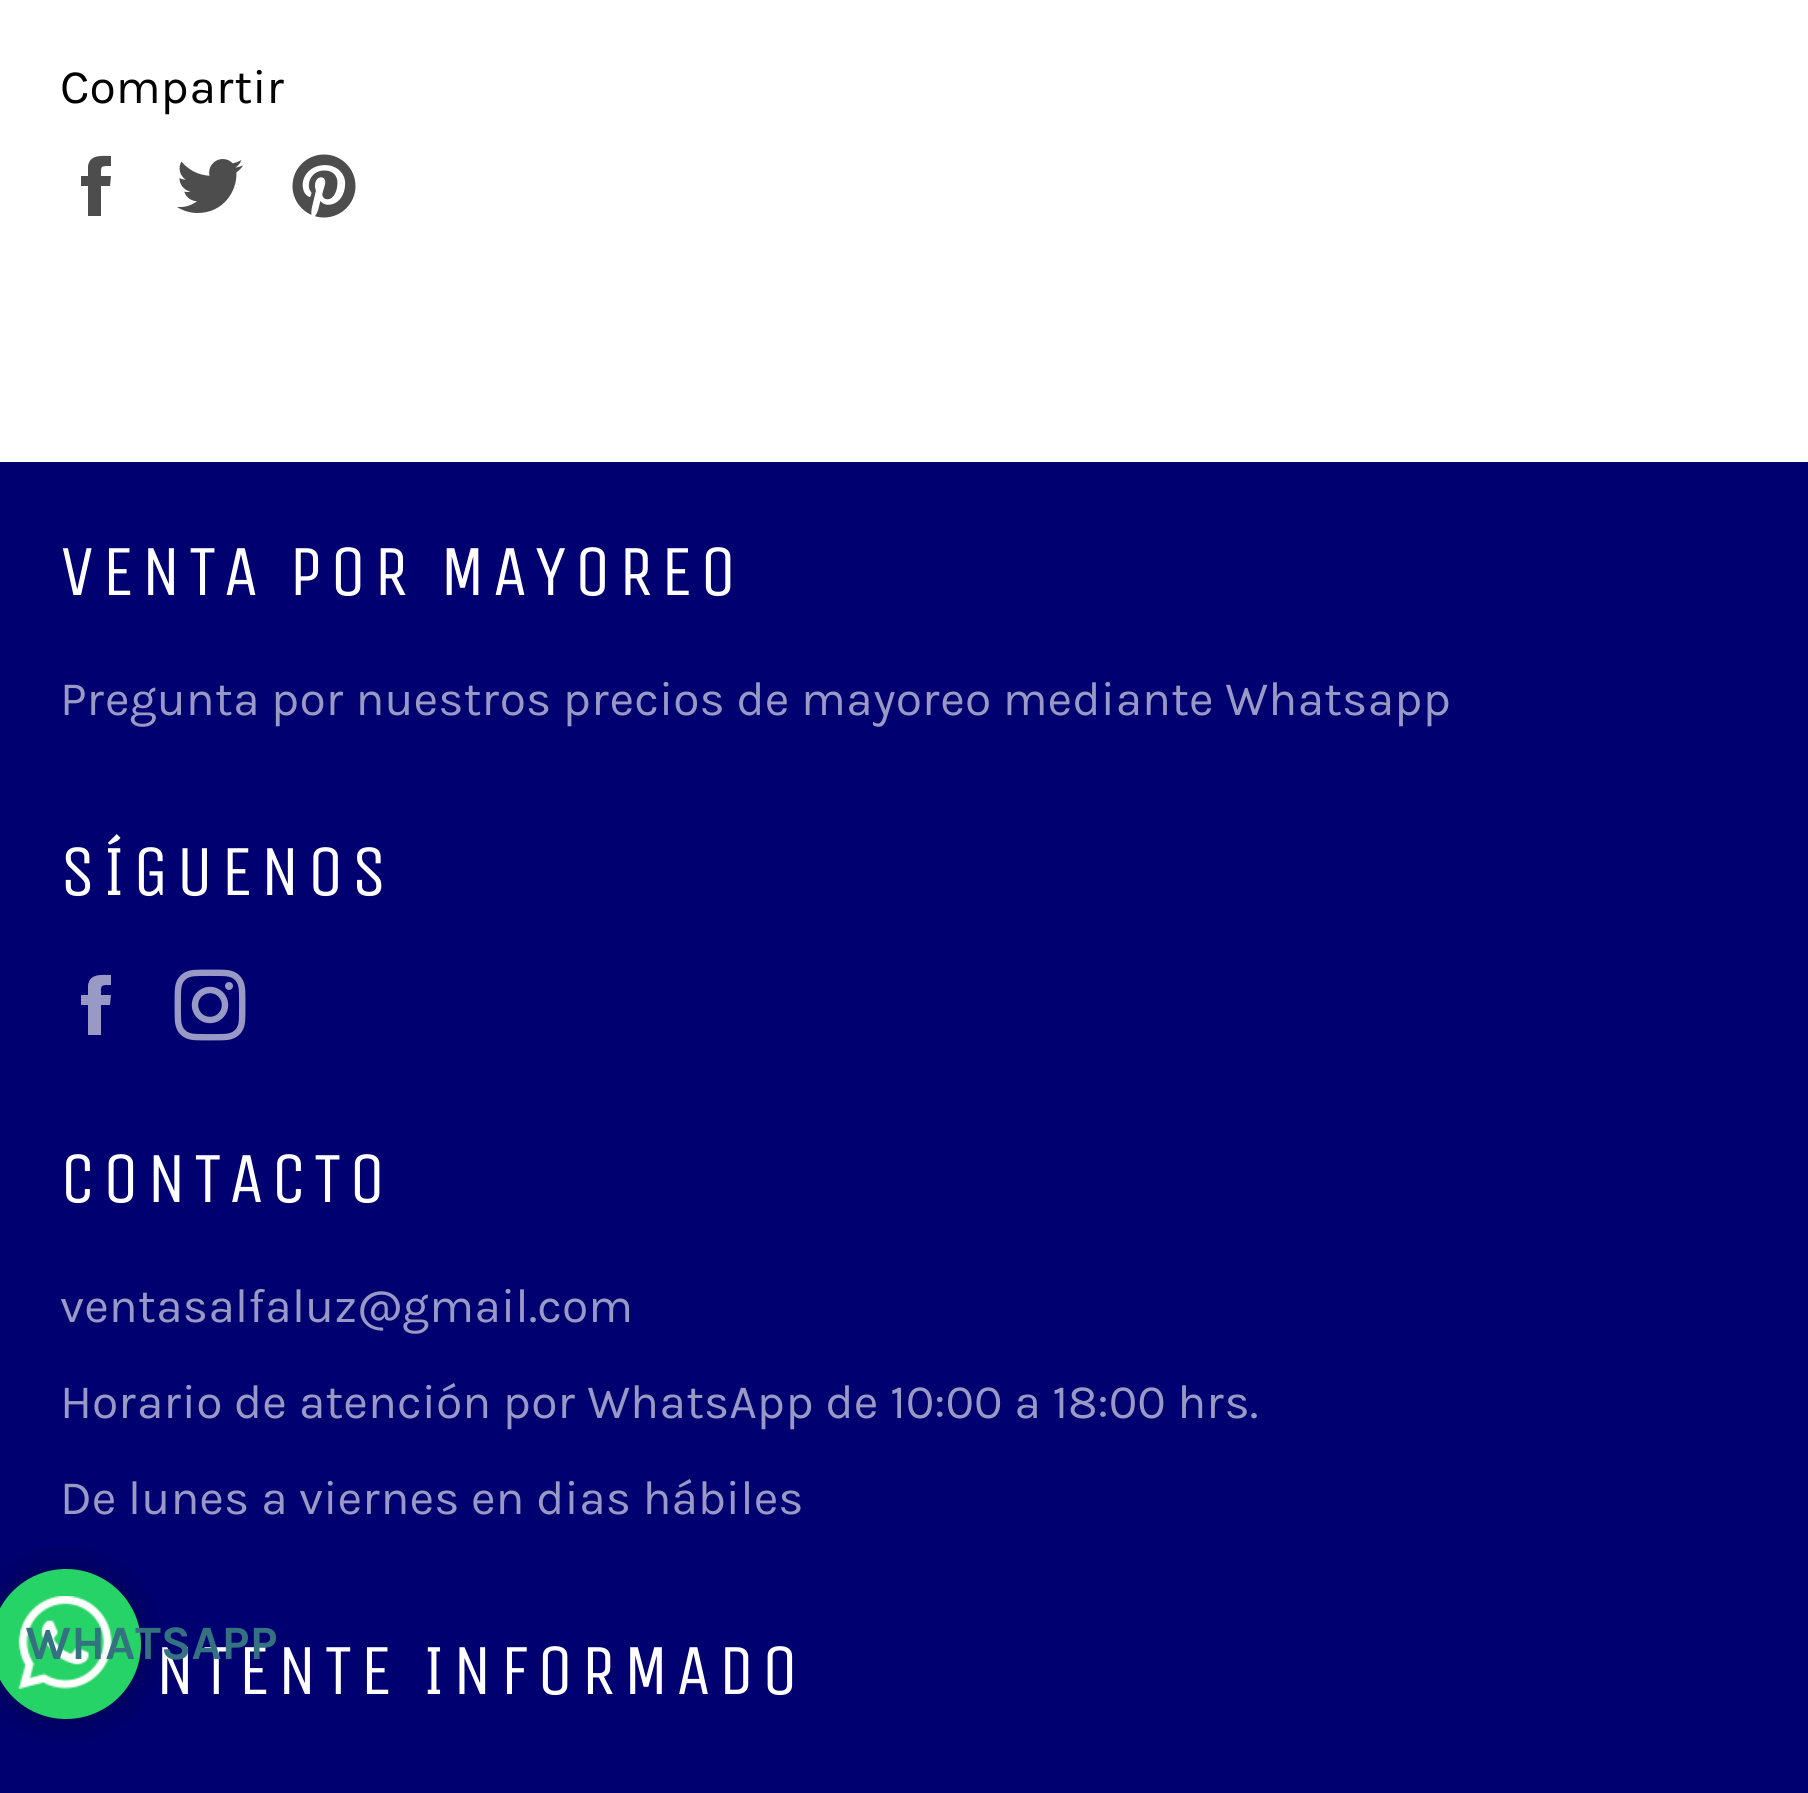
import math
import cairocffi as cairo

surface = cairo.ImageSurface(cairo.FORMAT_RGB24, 1808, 1793)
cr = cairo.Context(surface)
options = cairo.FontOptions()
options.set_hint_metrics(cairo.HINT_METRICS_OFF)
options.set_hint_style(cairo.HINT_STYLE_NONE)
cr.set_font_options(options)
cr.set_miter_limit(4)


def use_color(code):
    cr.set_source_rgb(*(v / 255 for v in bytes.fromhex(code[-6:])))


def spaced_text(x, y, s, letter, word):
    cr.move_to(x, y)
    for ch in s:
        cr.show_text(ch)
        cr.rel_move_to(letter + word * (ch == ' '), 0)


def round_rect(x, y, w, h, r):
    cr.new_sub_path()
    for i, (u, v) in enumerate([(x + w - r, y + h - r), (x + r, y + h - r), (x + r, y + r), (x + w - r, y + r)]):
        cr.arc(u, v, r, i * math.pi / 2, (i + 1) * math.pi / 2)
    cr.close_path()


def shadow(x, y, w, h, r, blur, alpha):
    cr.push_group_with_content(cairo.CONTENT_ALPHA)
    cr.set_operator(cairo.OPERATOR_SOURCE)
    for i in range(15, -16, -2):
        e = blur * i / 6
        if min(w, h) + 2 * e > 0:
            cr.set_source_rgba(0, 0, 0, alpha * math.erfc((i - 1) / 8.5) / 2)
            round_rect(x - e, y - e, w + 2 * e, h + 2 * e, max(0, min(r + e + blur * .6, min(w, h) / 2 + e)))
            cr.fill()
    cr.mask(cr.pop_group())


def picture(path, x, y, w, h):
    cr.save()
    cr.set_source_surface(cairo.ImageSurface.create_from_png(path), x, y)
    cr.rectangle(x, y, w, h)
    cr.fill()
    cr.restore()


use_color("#ffffff")
cr.paint()
cr.select_font_face("Karla")
cr.set_font_size(48)
use_color("#000000")
cr.move_to(60, 103)
cr.show_text("Compartir")
use_color("#4d4d4d")
cr.new_path()
cr.move_to(101, 176)
cr.curve_to(101, 166, 100, 166, 111, 166)
cr.line_to(111, 156)
cr.curve_to(102, 156, 90, 154, 88, 166)
cr.line_to(88, 176)
cr.line_to(81, 176)
cr.line_to(81, 186)
cr.line_to(88, 186)
cr.line_to(88, 216)
cr.line_to(101, 216)
cr.line_to(101, 186)
cr.line_to(110, 186)
cr.line_to(111, 176)
cr.close_path()
cr.fill()
picture("img1.png", 177, 159, 66, 54)
picture("img2.png", 292, 154, 64, 64)
use_color("#000070")
cr.rectangle(0, 462, 1808, 1331)
cr.fill()
cr.select_font_face("Unica One")
cr.set_font_size(72)
use_color("#ffffff")
spaced_text(60, 595, "VENTA POR MAYOREO", 7.25, 0)
cr.select_font_face("Karla")
cr.set_font_size(48)
use_color("#9999c6")
cr.move_to(60, 715)
cr.show_text("Pregunta por nuestros precios de mayoreo mediante Whatsapp")
cr.select_font_face("Unica One")
cr.set_font_size(72)
use_color("#ffffff")
spaced_text(60, 895, "SÍGUENOS", 7.25, 0)
use_color("#9999c6")
cr.new_path()
cr.move_to(101, 995)
cr.curve_to(101, 985, 100, 985, 111, 985)
cr.line_to(111, 975)
cr.curve_to(102, 975, 90, 973, 88, 985)
cr.line_to(88, 995)
cr.line_to(81, 995)
cr.line_to(81, 1005)
cr.line_to(88, 1005)
cr.line_to(88, 1035)
cr.line_to(101, 1035)
cr.line_to(101, 1005)
cr.line_to(110, 1005)
cr.line_to(111, 995)
cr.close_path()
cr.fill()
picture("img3.png", 174, 969, 72, 72)
use_color("#ffffff")
spaced_text(60, 1202, "CONTACTO", 7.25, 0)
cr.select_font_face("Karla")
cr.set_font_size(48)
use_color("#9999c6")
cr.move_to(60, 1322)
cr.show_text("ventasalfaluz@gmail.com")
cr.move_to(60, 1418)
cr.show_text("Horario de atención por WhatsApp de 10:00 a 18:00 hrs.")
cr.move_to(60, 1514)
cr.show_text("De lunes a viernes en dias hábiles")
cr.select_font_face("Unica One")
cr.set_font_size(72)
use_color("#ffffff")
spaced_text(155, 1694, "NTENTE INFORMADO", 7.25, 0)
use_color("#000000")
shadow(-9, 1569, 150, 150, 75, 15, 0.3)
use_color("#25d366")
cr.arc(66, 1644, 75, 0, 2 * math.pi)
cr.fill()
picture("img4.png", 18, 1596, 94, 94)
cr.select_font_face("Karla", cairo.FONT_SLANT_NORMAL, cairo.FONT_WEIGHT_BOLD)
cr.set_font_size(48)
use_color("#347281")
cr.move_to(25, 1659)
cr.show_text("WHATSAPP")
surface.write_to_png("result.png")
